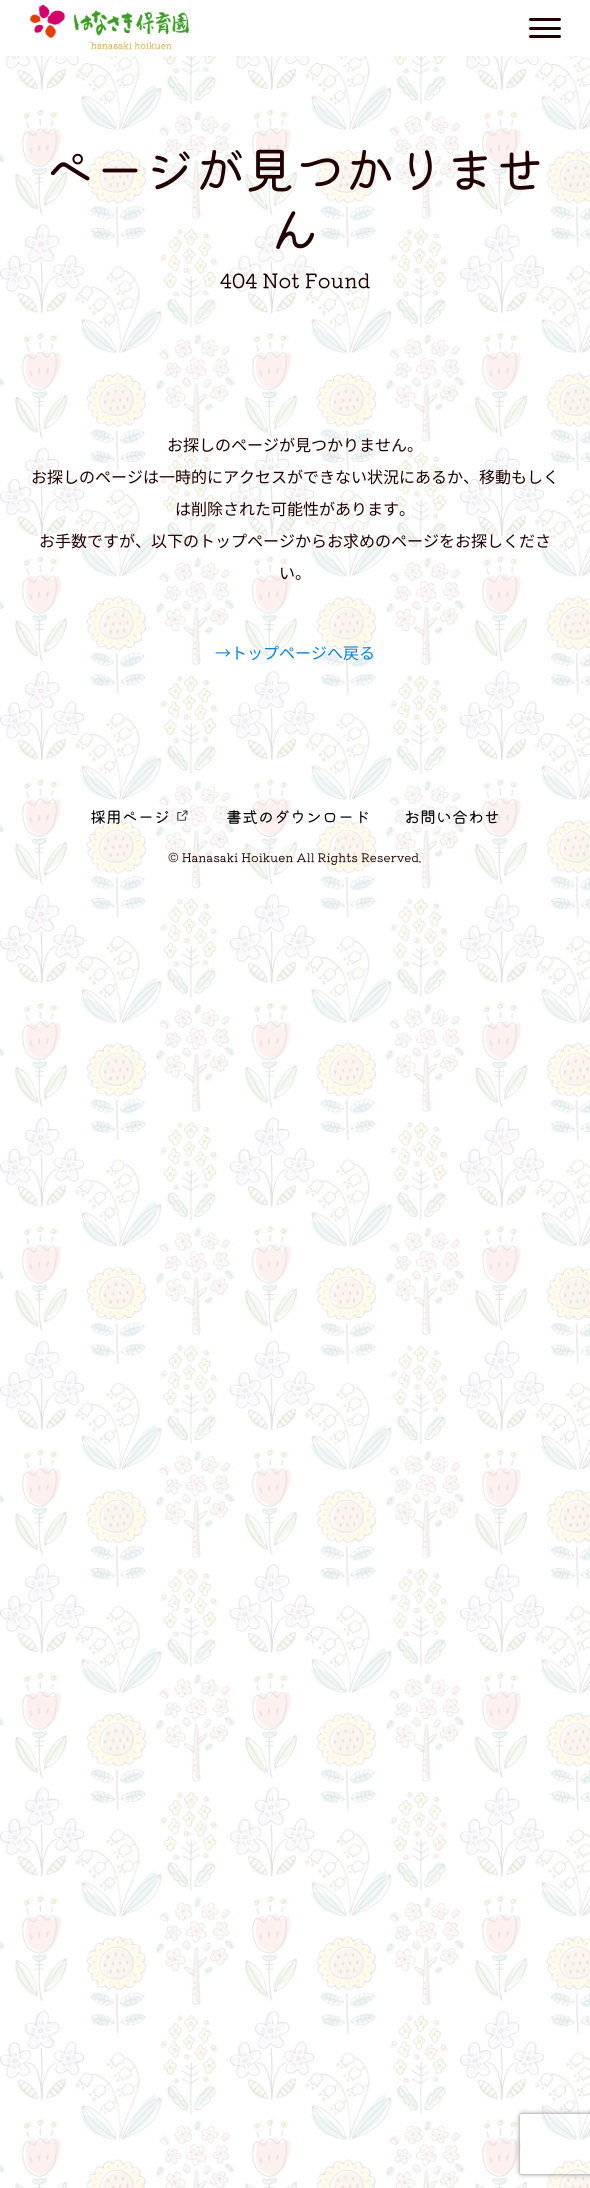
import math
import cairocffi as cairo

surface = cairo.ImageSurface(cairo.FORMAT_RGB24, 590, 2188)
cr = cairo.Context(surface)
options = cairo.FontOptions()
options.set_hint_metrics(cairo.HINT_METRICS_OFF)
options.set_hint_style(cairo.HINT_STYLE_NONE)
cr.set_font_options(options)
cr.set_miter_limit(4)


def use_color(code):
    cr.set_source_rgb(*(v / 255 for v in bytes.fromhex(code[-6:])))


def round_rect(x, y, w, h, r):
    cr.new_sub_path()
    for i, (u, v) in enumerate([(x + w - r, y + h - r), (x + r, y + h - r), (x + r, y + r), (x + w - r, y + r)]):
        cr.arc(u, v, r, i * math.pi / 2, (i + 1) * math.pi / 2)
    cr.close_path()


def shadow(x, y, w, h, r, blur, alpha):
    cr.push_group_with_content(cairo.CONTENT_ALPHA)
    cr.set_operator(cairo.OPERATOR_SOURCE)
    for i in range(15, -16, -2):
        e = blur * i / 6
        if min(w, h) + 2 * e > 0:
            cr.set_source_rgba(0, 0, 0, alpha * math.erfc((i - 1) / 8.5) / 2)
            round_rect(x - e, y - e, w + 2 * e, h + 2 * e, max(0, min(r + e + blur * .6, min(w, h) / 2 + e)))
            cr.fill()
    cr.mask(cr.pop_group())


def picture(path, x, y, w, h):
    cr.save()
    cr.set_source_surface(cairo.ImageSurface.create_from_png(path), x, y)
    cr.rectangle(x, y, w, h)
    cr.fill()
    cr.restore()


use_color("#ffffff")
cr.paint()
picture("img1.png", 0, 56, 590, 2132)
picture("img2.png", 29, 5, 160, 45)
use_color("#220000")
round_rect(529, 18, 32, 3, 1.5)
cr.fill()
round_rect(529, 27, 32, 3, 1.5)
cr.fill()
round_rect(529, 35, 32, 3, 1.5)
cr.fill()
cr.select_font_face("Kiwi Maru")
cr.set_font_size(50)
cr.move_to(45, 189)
cr.show_text("ページが見つかりませ")
cr.move_to(270, 249)
cr.show_text("ん")
cr.set_font_size(20)
cr.move_to(220, 288)
cr.show_text("404 Not Found")
cr.select_font_face("Noto Sans JP")
cr.set_font_size(16)
cr.move_to(167, 451)
cr.show_text("お探しのページが見つかりません。")
cr.move_to(31, 483)
cr.show_text("お探しのページは一時的にアクセスができない状況にあるか、移動もしく")
cr.move_to(175, 515)
cr.show_text("は削除された可能性があります。")
cr.move_to(39, 547)
cr.show_text("お手数ですが、以下のトップページからお求めのページをお探しくださ")
cr.move_to(279, 579)
cr.show_text("い。")
use_color("#0782dd")
cr.move_to(215, 659)
cr.show_text("→トップページへ戻る")
cr.select_font_face("Kiwi Maru")
use_color("#000000")
cr.move_to(90, 823)
cr.show_text("採用ページ")
picture("img3.png", 177, 810, 11, 11)
cr.move_to(226, 823)
cr.show_text("書式のダウンロード")
cr.move_to(404, 823)
cr.show_text("お問い合わせ")
cr.set_font_size(12)
use_color("#220000")
cr.move_to(168, 862)
cr.show_text("© Hanasaki Hoikuen All Rights Reserved.")
cr.save()
cr.set_fill_rule(cairo.FILL_RULE_EVEN_ODD)
cr.new_path()
cr.move_to(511, 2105)
cr.line_to(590, 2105)
cr.line_to(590, 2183)
cr.line_to(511, 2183)
cr.close_path()
cr.move_to(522, 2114)
cr.line_to(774, 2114)
cr.curve_to(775, 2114, 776, 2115, 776, 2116)
cr.line_to(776, 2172)
cr.curve_to(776, 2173, 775, 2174, 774, 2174)
cr.line_to(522, 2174)
cr.curve_to(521, 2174, 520, 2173, 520, 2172)
cr.line_to(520, 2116)
cr.curve_to(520, 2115, 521, 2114, 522, 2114)
cr.close_path()
cr.clip()
use_color("#808080")
shadow(520, 2114, 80, 60, 2, 2.5, 1)
cr.restore()
surface.write_to_png("result.png")
